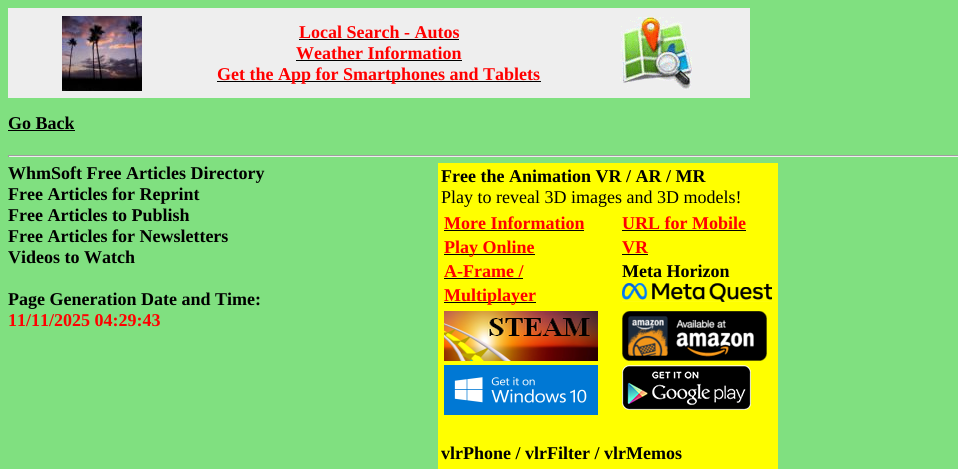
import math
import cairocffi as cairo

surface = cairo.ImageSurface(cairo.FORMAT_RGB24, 958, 469)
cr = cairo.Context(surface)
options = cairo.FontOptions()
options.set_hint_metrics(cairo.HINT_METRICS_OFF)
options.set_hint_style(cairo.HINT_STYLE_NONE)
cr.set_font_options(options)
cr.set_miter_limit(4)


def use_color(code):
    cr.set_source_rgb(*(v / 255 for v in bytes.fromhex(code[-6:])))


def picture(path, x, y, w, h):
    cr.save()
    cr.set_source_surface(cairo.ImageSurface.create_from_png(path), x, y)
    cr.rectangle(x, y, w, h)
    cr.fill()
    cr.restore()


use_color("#80e080")
cr.paint()
use_color("#eeeeee")
cr.rectangle(8, 8, 742, 90)
cr.fill()
picture("img1.png", 62, 16, 80, 75)
cr.select_font_face("Liberation Serif", cairo.FONT_SLANT_NORMAL, cairo.FONT_WEIGHT_BOLD)
cr.set_font_size(18)
use_color("#ff0000")
cr.move_to(299, 38)
cr.show_text("Local Search - Autos")
use_color("#000000")
cr.rectangle(299, 39, 160, 1)
cr.fill()
use_color("#ff0000")
cr.move_to(296, 59)
cr.show_text("Weather Information")
use_color("#000000")
cr.rectangle(296, 60, 166, 1)
cr.fill()
cr.rectangle(217, 81, 324, 1)
cr.fill()
use_color("#ff0000")
cr.move_to(217, 80)
cr.show_text("Get the App for Smartphones and Tablets")
picture("img2.png", 620, 17, 73, 73)
use_color("#000000")
cr.move_to(8, 129)
cr.show_text("Go Back")
cr.rectangle(8, 130, 67, 1)
cr.fill()
use_color("#9f9f9f")
cr.rectangle(8, 155, 950, 1)
cr.fill()
use_color("#eeeeee")
cr.rectangle(8, 156, 950, 1)
cr.fill()
use_color("#9f9f9f")
cr.rectangle(8, 155, 1, 2)
cr.fill()
use_color("#000000")
cr.move_to(8, 179)
cr.show_text("WhmSoft Free Articles Directory")
cr.move_to(8, 200)
cr.show_text("Free Articles for Reprint")
cr.move_to(8, 221)
cr.show_text("Free Articles to Publish")
cr.move_to(8, 242)
cr.show_text("Free Articles for Newsletters")
cr.move_to(8, 263)
cr.show_text("Videos to Watch")
cr.move_to(8, 305)
cr.show_text("Page Generation Date and Time:")
use_color("#ff0000")
cr.move_to(8, 326)
cr.show_text("11/11/2025 04:29:43")
use_color("#ffff00")
cr.rectangle(438, 163, 340, 306)
cr.fill()
use_color("#000000")
cr.move_to(441, 182)
cr.show_text("Free the Animation VR / AR / MR")
cr.select_font_face("Liberation Serif")
cr.move_to(441, 203)
cr.show_text("Play to reveal 3D images and 3D models!")
cr.select_font_face("Liberation Serif", cairo.FONT_SLANT_NORMAL, cairo.FONT_WEIGHT_BOLD)
use_color("#ff0000")
cr.move_to(444, 229)
cr.show_text("More Information")
use_color("#000000")
cr.rectangle(444, 230, 140, 1)
cr.fill()
cr.rectangle(444, 254, 91, 1)
cr.fill()
use_color("#ff0000")
cr.move_to(444, 253)
cr.show_text("Play Online")
cr.move_to(444, 277)
cr.show_text("A-Frame /")
use_color("#000000")
cr.rectangle(444, 278, 79, 1)
cr.fill()
cr.rectangle(444, 302, 92, 1)
cr.fill()
use_color("#ff0000")
cr.move_to(444, 301)
cr.show_text("Multiplayer")
cr.move_to(622, 229)
cr.show_text("URL for Mobile")
use_color("#000000")
cr.rectangle(622, 230, 124, 1)
cr.fill()
use_color("#ff0000")
cr.move_to(622, 253)
cr.show_text("VR")
use_color("#000000")
cr.rectangle(622, 254, 26, 1)
cr.fill()
cr.move_to(622, 277)
cr.show_text("Meta Horizon")
picture("img3.png", 622, 283, 150, 19)
picture("img4.png", 444, 311, 154, 50)
picture("img5.png", 622, 311, 145, 50)
picture("img6.png", 444, 365, 154, 50)
picture("img7.png", 622, 365, 129, 45)
cr.move_to(441, 459)
cr.show_text("vlrPhone / vlrFilter / vlrMemos")
surface.write_to_png("result.png")
